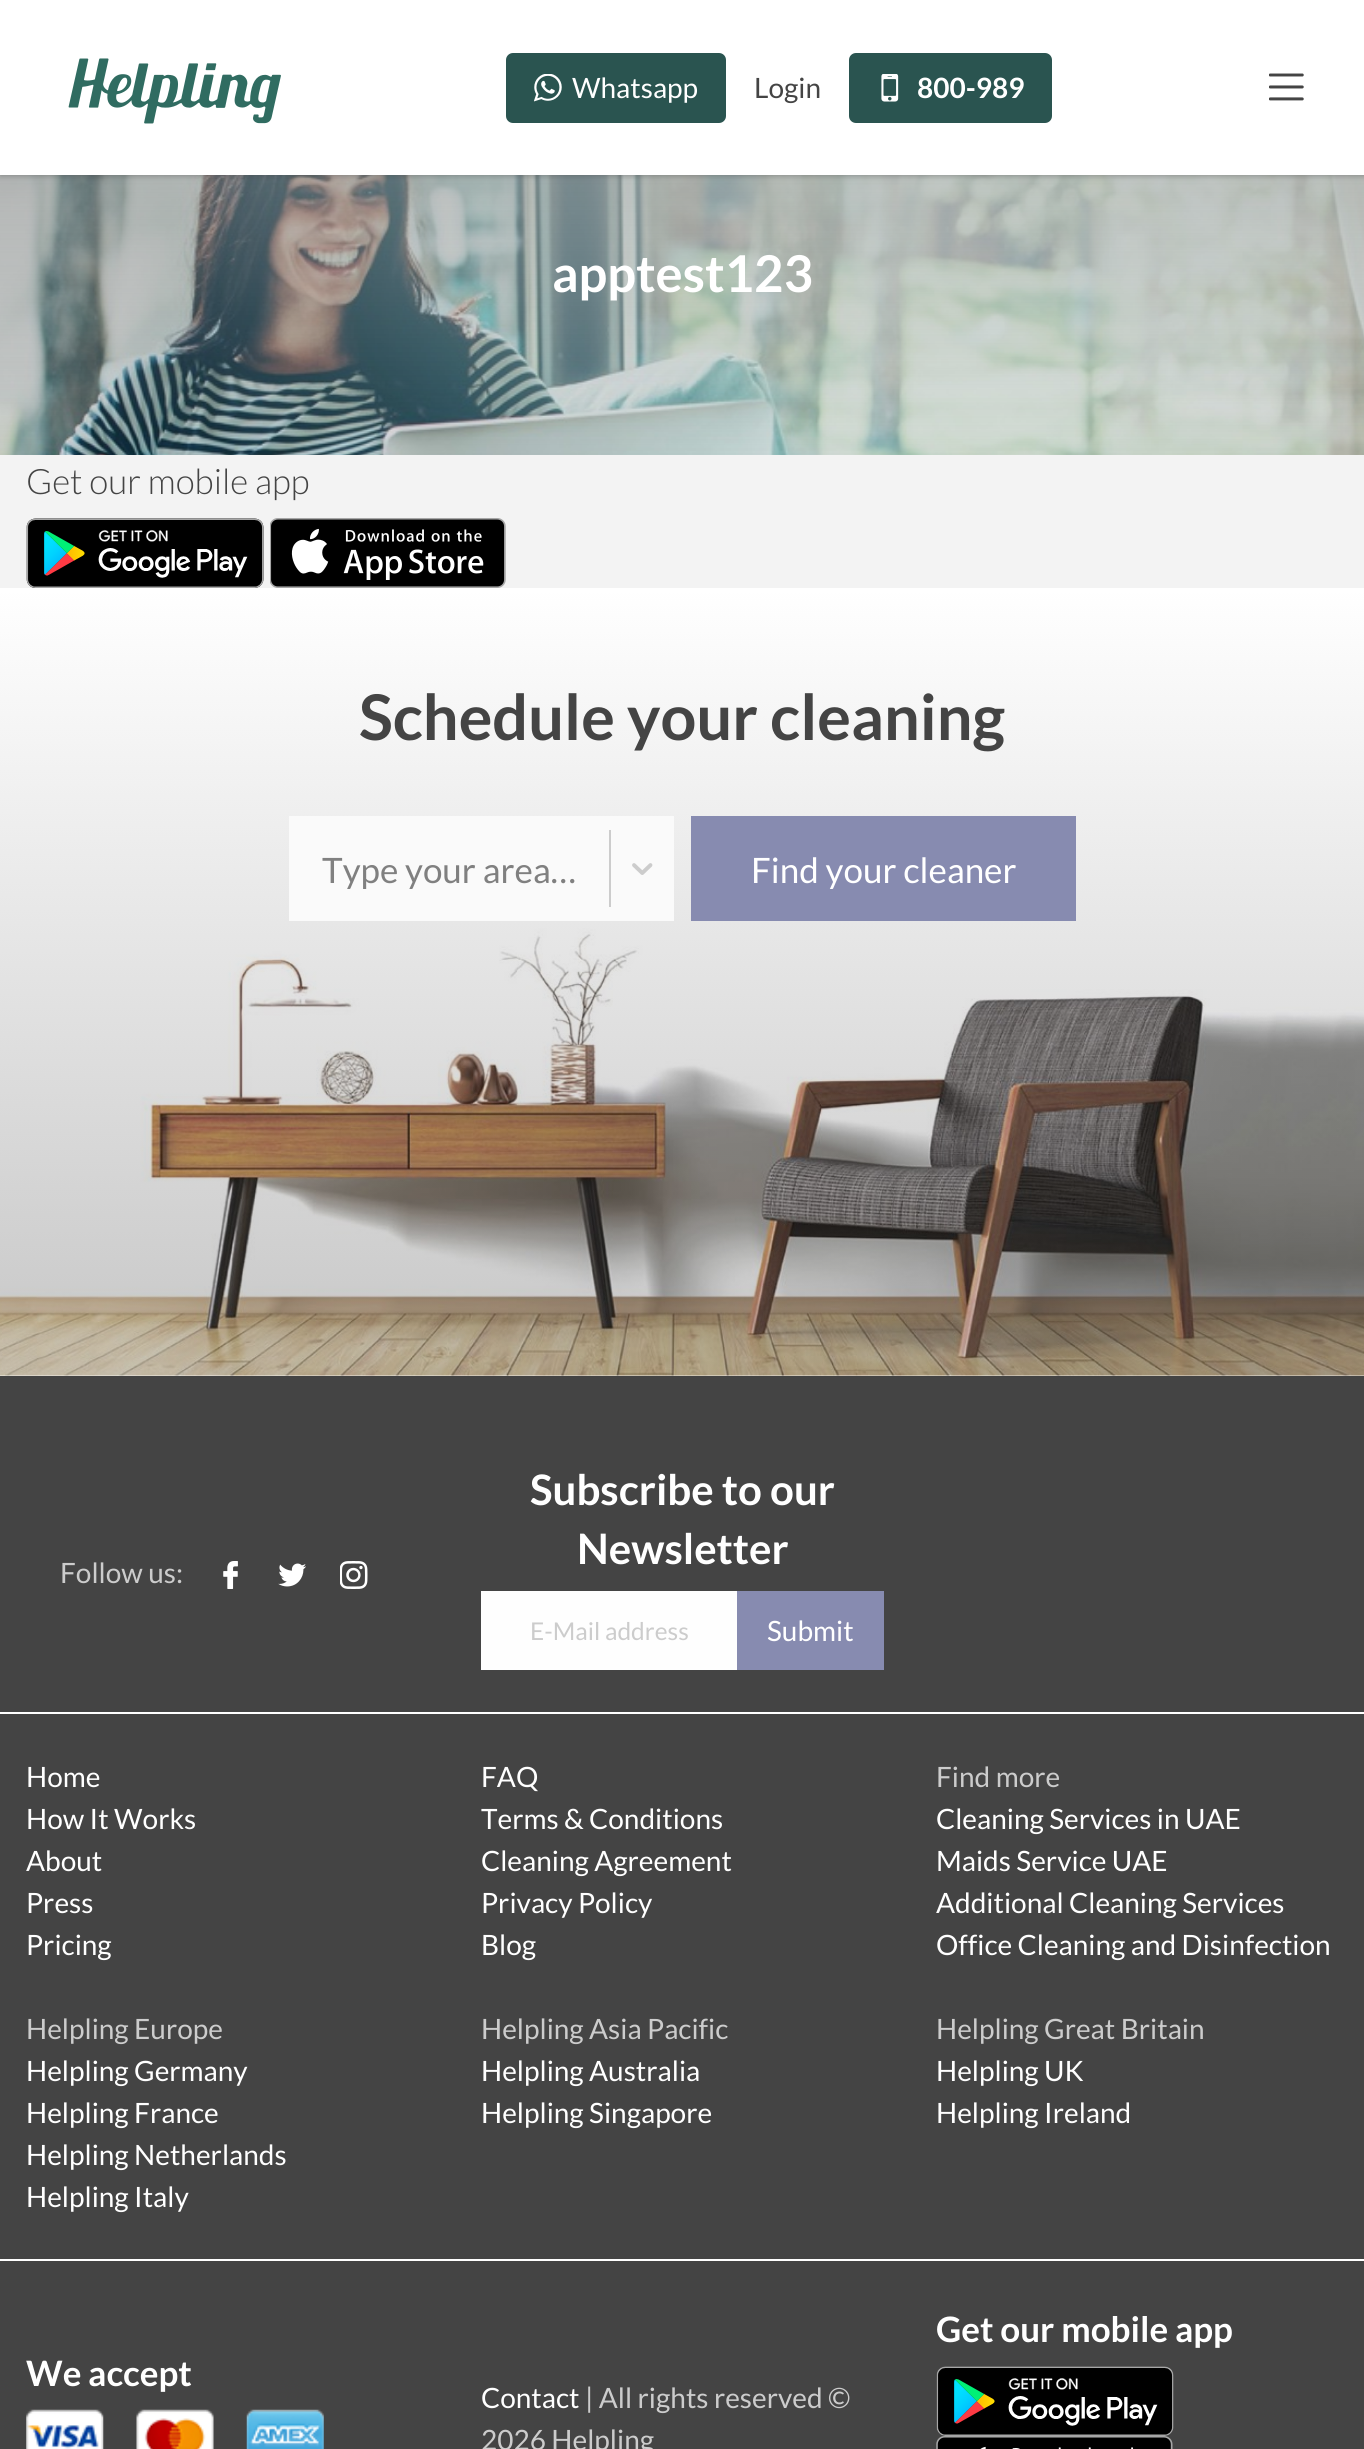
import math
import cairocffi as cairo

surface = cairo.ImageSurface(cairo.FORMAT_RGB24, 1364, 2449)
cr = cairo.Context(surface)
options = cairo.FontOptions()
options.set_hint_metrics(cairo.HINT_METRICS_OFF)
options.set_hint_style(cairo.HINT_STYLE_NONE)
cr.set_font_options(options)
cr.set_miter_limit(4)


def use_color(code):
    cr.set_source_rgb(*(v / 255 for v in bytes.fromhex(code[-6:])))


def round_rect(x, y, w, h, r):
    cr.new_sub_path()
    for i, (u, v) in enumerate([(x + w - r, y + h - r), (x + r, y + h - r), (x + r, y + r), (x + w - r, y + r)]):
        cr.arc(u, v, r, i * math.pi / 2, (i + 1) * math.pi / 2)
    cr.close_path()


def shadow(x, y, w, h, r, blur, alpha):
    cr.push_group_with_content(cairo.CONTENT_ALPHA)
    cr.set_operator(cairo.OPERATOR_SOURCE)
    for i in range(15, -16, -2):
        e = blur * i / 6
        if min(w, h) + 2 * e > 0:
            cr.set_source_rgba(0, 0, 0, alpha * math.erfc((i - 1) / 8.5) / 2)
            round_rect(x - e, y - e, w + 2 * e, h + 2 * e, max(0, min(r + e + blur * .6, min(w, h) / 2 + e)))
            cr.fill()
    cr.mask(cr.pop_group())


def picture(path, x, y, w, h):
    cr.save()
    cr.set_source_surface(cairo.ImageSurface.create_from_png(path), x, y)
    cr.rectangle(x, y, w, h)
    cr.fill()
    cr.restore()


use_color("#f3f3f3")
cr.paint()
picture("img5.png", 0, 175, 1364, 280)
use_color("#444444")
shadow(0, 0, 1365, 175, 0, 3.5, 0.5)
use_color("#ffffff")
cr.rectangle(0, 0, 1364, 175)
cr.fill()
picture("img1.png", 68, 58, 213, 66)
use_color("#2a5450")
round_rect(506, 53, 220, 70, 7)
cr.fill()
picture("img2.png", 534, 74, 28, 28)
cr.select_font_face("Lato")
cr.set_font_size(28)
use_color("#ffffff")
cr.move_to(572, 98)
cr.show_text("Whatsapp")
use_color("#444444")
cr.move_to(754, 98)
cr.show_text("Login")
use_color("#2a5450")
round_rect(849, 53, 203, 70, 7)
cr.fill()
picture("img3.png", 881, 74, 18, 28)
cr.select_font_face("Lato", cairo.FONT_SLANT_NORMAL, cairo.FONT_WEIGHT_BOLD)
use_color("#ffffff")
cr.move_to(917, 98)
cr.show_text("800-989")
picture("img4.png", 1269, 73, 35, 28)
cr.set_font_size(50.75)
cr.move_to(552, 292)
cr.show_text("apptest123")
cr.select_font_face("Lato Light")
cr.set_font_size(35)
use_color("#444444")
cr.move_to(26, 494)
cr.show_text("Get our mobile app")
picture("img6.png", 26, 518, 238, 70)
picture("img7.png", 270, 518, 236, 70)
picture("img8.png", 0, 588, 1364, 788)
cr.select_font_face("Lato", cairo.FONT_SLANT_NORMAL, cairo.FONT_WEIGHT_BOLD)
cr.set_font_size(63)
cr.move_to(359, 740)
cr.show_text("Schedule your cleaning")
use_color("#fafafa")
cr.rectangle(289, 816, 385, 105)
cr.fill()
cr.select_font_face("Lato")
cr.set_font_size(35)
use_color("#808080")
cr.move_to(322, 883)
cr.show_text("Type your area…")
use_color("#cccccc")
cr.rectangle(609, 830, 2, 77)
cr.fill()
picture("img9.png", 632, 863, 21, 12)
use_color("#878bb0")
cr.rectangle(691, 816, 385, 105)
cr.fill()
use_color("#ffffff")
cr.move_to(751, 883)
cr.show_text("Find your cleaner")
use_color("#444444")
cr.rectangle(0, 1376, 1364, 1073)
cr.fill()
use_color("#ffffff")
cr.rectangle(0, 1712, 1364, 2)
cr.fill()
cr.set_font_size(28)
use_color("#cccccc")
cr.move_to(60, 1583)
cr.show_text("Follow us:")
picture("img10.png", 223, 1561, 15, 28)
picture("img11.png", 278, 1563, 28, 24)
picture("img12.png", 340, 1561, 28, 28)
cr.select_font_face("Lato", cairo.FONT_SLANT_NORMAL, cairo.FONT_WEIGHT_BOLD)
cr.set_font_size(42)
use_color("#ffffff")
cr.move_to(530, 1505)
cr.show_text("Subscribe to our")
cr.move_to(577, 1564)
cr.show_text("Newsletter")
use_color("#fefefe")
cr.rectangle(481, 1591, 256, 79)
cr.fill()
cr.select_font_face("Lato")
cr.set_font_size(24.5)
use_color("#cccccc")
cr.move_to(530, 1640)
cr.show_text("E-Mail address")
use_color("#878bb0")
cr.rectangle(737, 1591, 147, 79)
cr.fill()
cr.set_font_size(28)
use_color("#ffffff")
cr.move_to(767, 1641)
cr.show_text("Submit")
cr.rectangle(0, 2259, 1364, 2)
cr.fill()
cr.move_to(26, 1787)
cr.show_text("Home")
cr.move_to(26, 1829)
cr.show_text("How It Works")
cr.move_to(26, 1871)
cr.show_text("About")
cr.move_to(26, 1913)
cr.show_text("Press")
cr.move_to(26, 1955)
cr.show_text("Pricing")
cr.move_to(481, 1787)
cr.show_text("FAQ")
cr.move_to(481, 1829)
cr.show_text("Terms & Conditions")
cr.move_to(481, 1871)
cr.show_text("Cleaning Agreement")
cr.move_to(481, 1913)
cr.show_text("Privacy Policy")
cr.move_to(481, 1955)
cr.show_text("Blog")
use_color("#cccccc")
cr.move_to(936, 1787)
cr.show_text("Find more")
use_color("#ffffff")
cr.move_to(936, 1829)
cr.show_text("Cleaning Services in UAE")
cr.move_to(936, 1871)
cr.show_text("Maids Service UAE")
cr.move_to(936, 1913)
cr.show_text("Additional Cleaning Services")
cr.move_to(936, 1955)
cr.show_text("Office Cleaning and Disinfection")
use_color("#cccccc")
cr.move_to(26, 2039)
cr.show_text("Helpling Europe")
use_color("#ffffff")
cr.move_to(26, 2081)
cr.show_text("Helpling Germany")
cr.move_to(26, 2123)
cr.show_text("Helpling France")
cr.move_to(26, 2165)
cr.show_text("Helpling Netherlands")
cr.move_to(26, 2207)
cr.show_text("Helpling Italy")
use_color("#cccccc")
cr.move_to(481, 2039)
cr.show_text("Helpling Asia Pacific")
use_color("#ffffff")
cr.move_to(481, 2081)
cr.show_text("Helpling Australia")
cr.move_to(481, 2123)
cr.show_text("Helpling Singapore")
use_color("#cccccc")
cr.move_to(936, 2039)
cr.show_text("Helpling Great Britain")
use_color("#ffffff")
cr.move_to(936, 2081)
cr.show_text("Helpling UK")
cr.move_to(936, 2123)
cr.show_text("Helpling Ireland")
cr.select_font_face("Lato", cairo.FONT_SLANT_NORMAL, cairo.FONT_WEIGHT_BOLD)
cr.set_font_size(35)
cr.move_to(936, 2342)
cr.show_text("Get our mobile app")
picture("img13.png", 936, 2366, 238, 70)
picture("img14.png", 936, 2436, 237, 13)
cr.move_to(26, 2386)
cr.show_text("We accept")
picture("img15.png", 26, 2409, 78, 40)
picture("img16.png", 136, 2409, 78, 40)
picture("img17.png", 246, 2409, 78, 40)
cr.select_font_face("Lato")
cr.set_font_size(28)
cr.move_to(481, 2408)
cr.show_text("Contact")
use_color("#cccccc")
cr.move_to(585, 2408)
cr.show_text("| All rights reserved ©")
cr.move_to(481, 2450)
cr.show_text("2026 Helpling")
surface.write_to_png("result.png")
